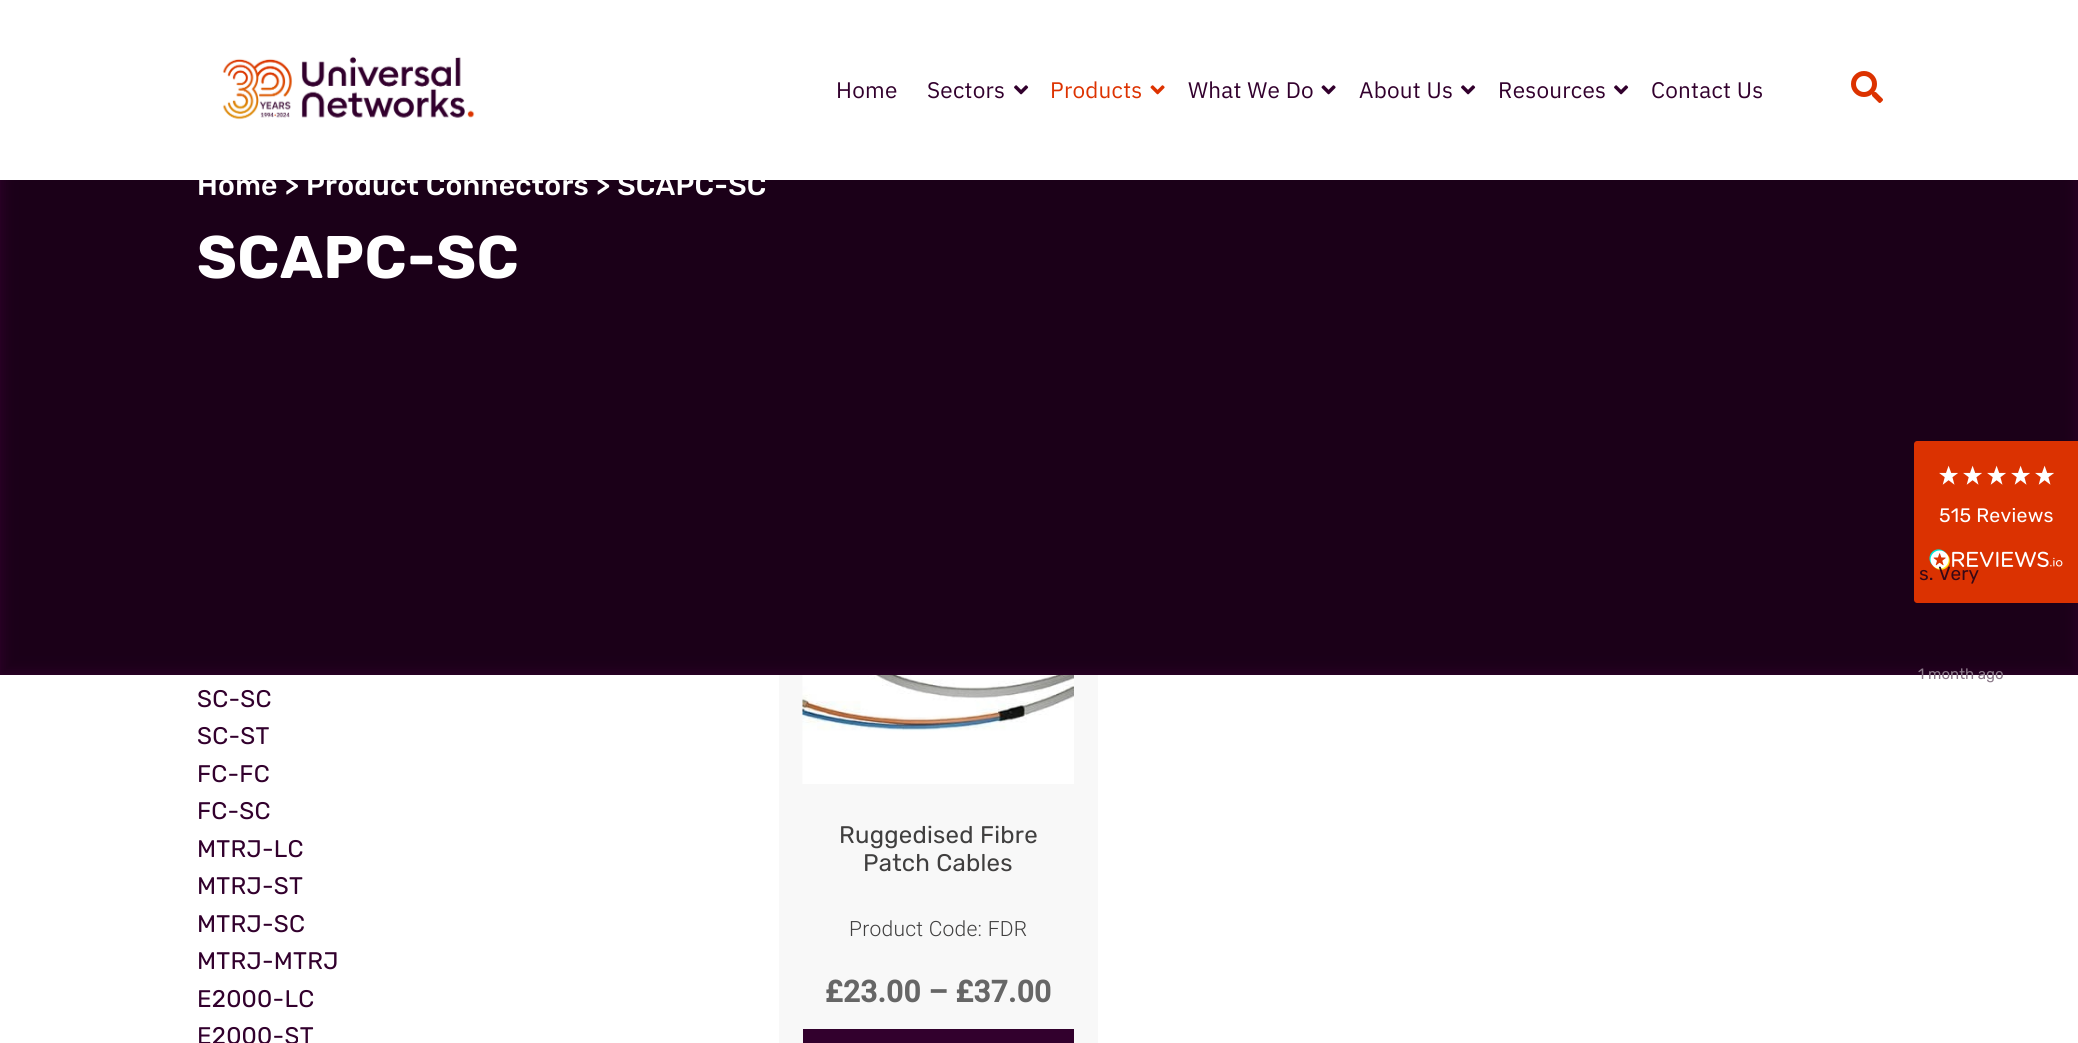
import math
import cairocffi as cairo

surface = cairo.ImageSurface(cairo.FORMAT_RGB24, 2078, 1043)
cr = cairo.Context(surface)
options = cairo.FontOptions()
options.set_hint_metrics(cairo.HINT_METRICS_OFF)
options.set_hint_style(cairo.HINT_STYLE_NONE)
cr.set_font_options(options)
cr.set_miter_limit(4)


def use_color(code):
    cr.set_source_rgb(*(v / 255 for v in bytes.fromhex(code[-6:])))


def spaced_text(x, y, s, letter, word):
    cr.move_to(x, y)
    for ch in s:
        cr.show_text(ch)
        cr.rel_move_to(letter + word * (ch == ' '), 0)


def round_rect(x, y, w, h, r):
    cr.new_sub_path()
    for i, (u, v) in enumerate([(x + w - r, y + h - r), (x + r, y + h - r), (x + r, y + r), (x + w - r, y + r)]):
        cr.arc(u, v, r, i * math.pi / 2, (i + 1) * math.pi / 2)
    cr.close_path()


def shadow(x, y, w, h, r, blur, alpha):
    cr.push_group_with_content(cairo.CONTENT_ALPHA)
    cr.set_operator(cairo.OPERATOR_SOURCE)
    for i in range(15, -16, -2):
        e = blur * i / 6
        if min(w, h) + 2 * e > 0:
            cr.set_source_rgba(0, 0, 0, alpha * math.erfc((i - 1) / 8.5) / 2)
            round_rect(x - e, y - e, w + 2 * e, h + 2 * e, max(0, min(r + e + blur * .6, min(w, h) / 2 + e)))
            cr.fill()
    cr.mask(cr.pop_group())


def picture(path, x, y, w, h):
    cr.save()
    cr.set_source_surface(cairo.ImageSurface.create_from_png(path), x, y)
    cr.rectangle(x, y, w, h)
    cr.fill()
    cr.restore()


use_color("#ffffff")
cr.paint()
use_color("#32002d")
cr.rectangle(0, 180, 2078, 495)
cr.fill()
use_color("#f8f8f8")
cr.rectangle(779, 675, 319, 368)
cr.fill()
picture("img8.png", 802, 675, 272, 109)
cr.save()
cr.rectangle(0, 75, 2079, 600)
cr.clip()
use_color("#000000")
shadow(0, 75, 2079, 600, 0, 7.5, 0.46)
cr.restore()
use_color("#ffffff")
cr.rectangle(0, 75, 2078, 105)
cr.fill()
picture("img1.png", 222, 56, 253, 64)
cr.select_font_face("IBM Plex Sans")
cr.set_font_size(22.5)
use_color("#32002d")
spaced_text(836, 98, "Home", 0.25, 0)
spaced_text(927, 98, "Sectors", 0.25, 0)
picture("img2.png", 1014, 85, 15, 10)
use_color("#dd3200")
spaced_text(1050, 98, "Products", 0.25, 0)
picture("img3.png", 1150, 85, 15, 10)
use_color("#32002d")
spaced_text(1188, 98, "What We Do", 0.25, 0)
picture("img4.png", 1321, 85, 15, 10)
spaced_text(1359, 98, "About Us", 0.25, 0)
picture("img2.png", 1461, 85, 15, 10)
spaced_text(1498, 98, "Resources", 0.25, 0)
picture("img2.png", 1614, 85, 15, 10)
spaced_text(1651, 98, "Contact Us", 0.25, 0)
picture("img5.png", 1851, 71, 32, 32)
cr.select_font_face("Rubik Medium")
cr.set_font_size(28.5)
use_color("#ffffff")
spaced_text(197, 195, "Home > Product Connectors > SCAPC-SC", 0.25, 0)
cr.select_font_face("Rubik", cairo.FONT_SLANT_NORMAL, cairo.FONT_WEIGHT_BOLD)
cr.set_font_size(60)
spaced_text(197, 278, "SCAPC-SC", 0.5, 0)
use_color("#db3201")
cr.new_path()
cr.move_to(1917, 441)
cr.line_to(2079, 441)
cr.line_to(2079, 603)
cr.line_to(1917, 603)
cr.curve_to(1915.5, 603, 1914, 601.5, 1914, 600)
cr.line_to(1914, 444)
cr.curve_to(1914, 442.5, 1915.5, 441, 1917, 441)
cr.close_path()
cr.fill()
picture("img6.png", 1939, 465, 19, 20)
picture("img6.png", 1963, 465, 19, 20)
picture("img6.png", 1987, 465, 19, 20)
picture("img6.png", 2011, 465, 19, 20)
picture("img6.png", 2035, 465, 19, 20)
cr.select_font_face("Rubik")
cr.set_font_size(19.5)
use_color("#ffffff")
spaced_text(1939, 522, "515 Reviews", 0.25, 0)
picture("img7.png", 1929, 549, 134, 21)
cr.set_font_size(19)
use_color("#370816")
cr.move_to(1919, 580)
cr.show_text("s. Very")
cr.set_font_size(15)
use_color("#8b7989")
cr.move_to(1918, 679)
cr.show_text("1 month ago")
cr.set_font_size(24)
use_color("#32002d")
spaced_text(197, 707, "SC-SC", 0.25, 0)
spaced_text(197, 744, "SC-ST", 0.25, 0)
spaced_text(197, 782, "FC-FC", 0.25, 0)
spaced_text(197, 819, "FC-SC", 0.25, 0)
spaced_text(197, 857, "MTRJ-LC", 0.25, 0)
spaced_text(197, 894, "MTRJ-ST", 0.25, 0)
spaced_text(197, 932, "MTRJ-SC", 0.25, 0)
spaced_text(197, 969, "MTRJ-MTRJ", 0.25, 0)
spaced_text(197, 1007, "E2000-LC", 0.25, 0)
spaced_text(197, 1044, "E2000-ST", 0.25, 0)
use_color("#403f3f")
spaced_text(839, 843, "Ruggedised Fibre", 0.25, 0)
spaced_text(863, 871, "Patch Cables", 0.25, 0)
cr.select_font_face("Roboto Light")
cr.set_font_size(21)
spaced_text(849, 936, "Product Code: FDR", 0.25, 0)
cr.select_font_face("Roboto", cairo.FONT_SLANT_NORMAL, cairo.FONT_WEIGHT_BOLD)
cr.set_font_size(30)
use_color("#666666")
spaced_text(825, 1002, "£23.00 – £37.00", 0.25, 0)
use_color("#32002d")
cr.rectangle(803, 1029, 271, 14)
cr.fill()
surface.write_to_png("result.png")
